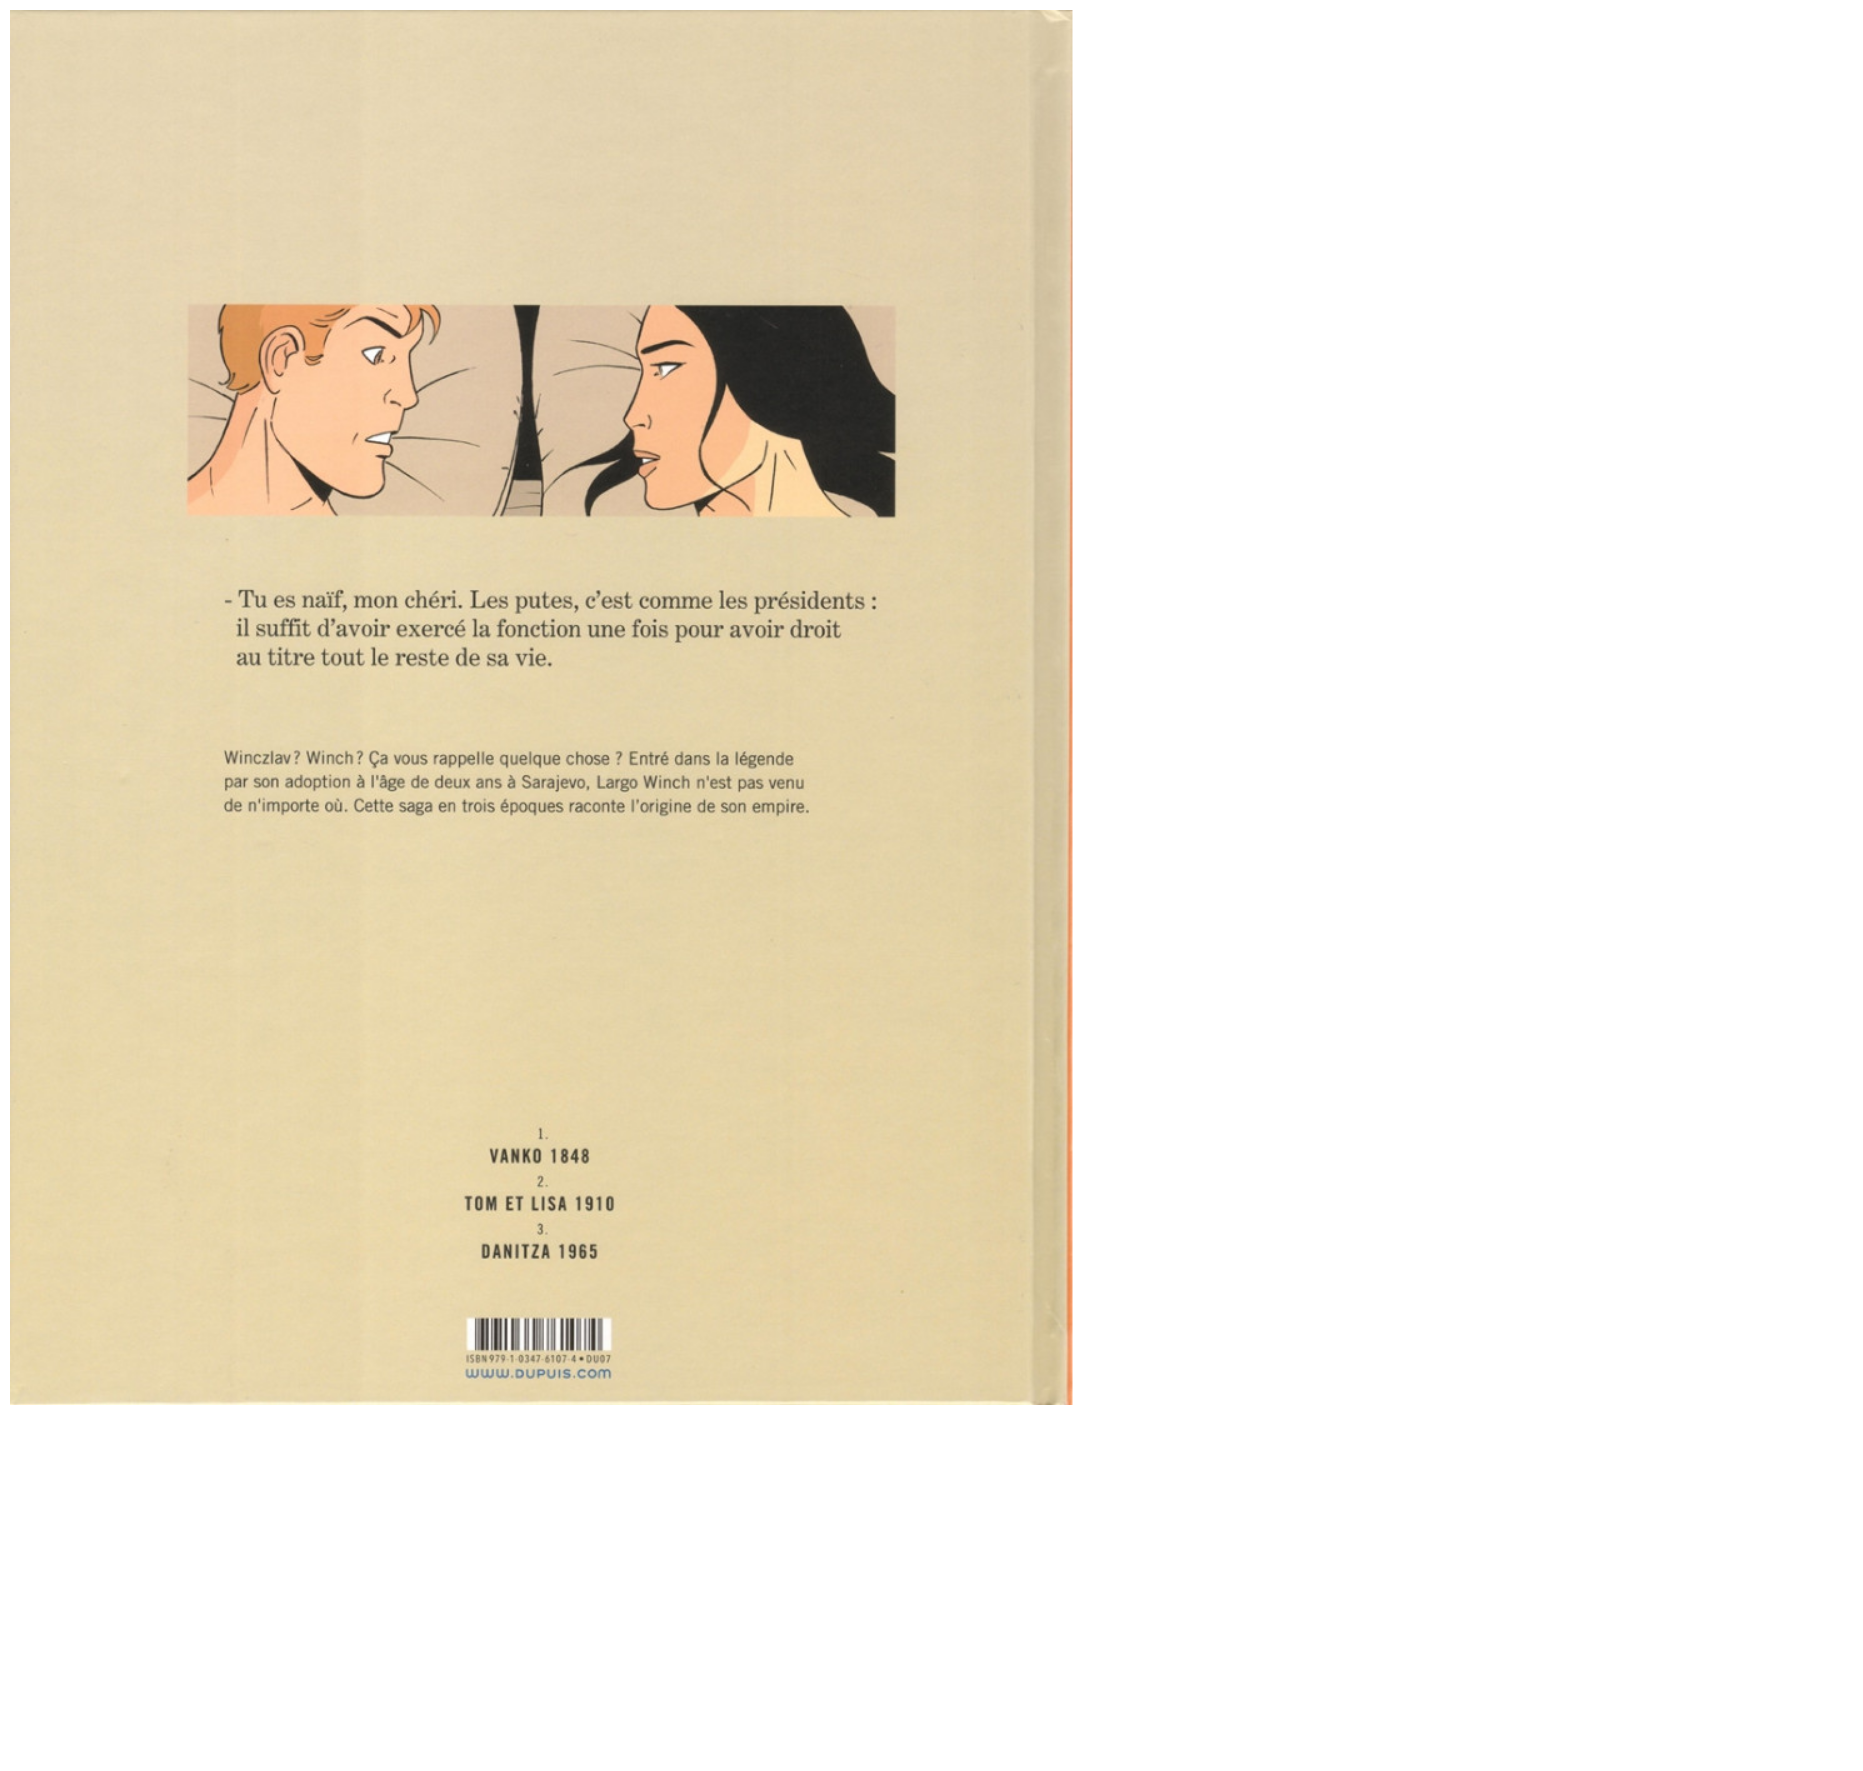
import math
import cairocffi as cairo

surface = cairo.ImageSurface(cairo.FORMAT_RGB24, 1863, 1771)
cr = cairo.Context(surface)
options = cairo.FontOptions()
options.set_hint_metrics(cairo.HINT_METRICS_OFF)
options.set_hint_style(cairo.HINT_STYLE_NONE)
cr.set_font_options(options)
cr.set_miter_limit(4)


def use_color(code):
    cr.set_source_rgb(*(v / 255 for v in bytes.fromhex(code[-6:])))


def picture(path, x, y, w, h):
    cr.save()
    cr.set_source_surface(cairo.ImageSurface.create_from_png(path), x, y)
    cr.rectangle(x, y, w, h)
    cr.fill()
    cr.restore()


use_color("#ffffff")
cr.paint()
picture("img1.png", 10, 10, 1063, 1395)
surface.write_to_png("result.png")
